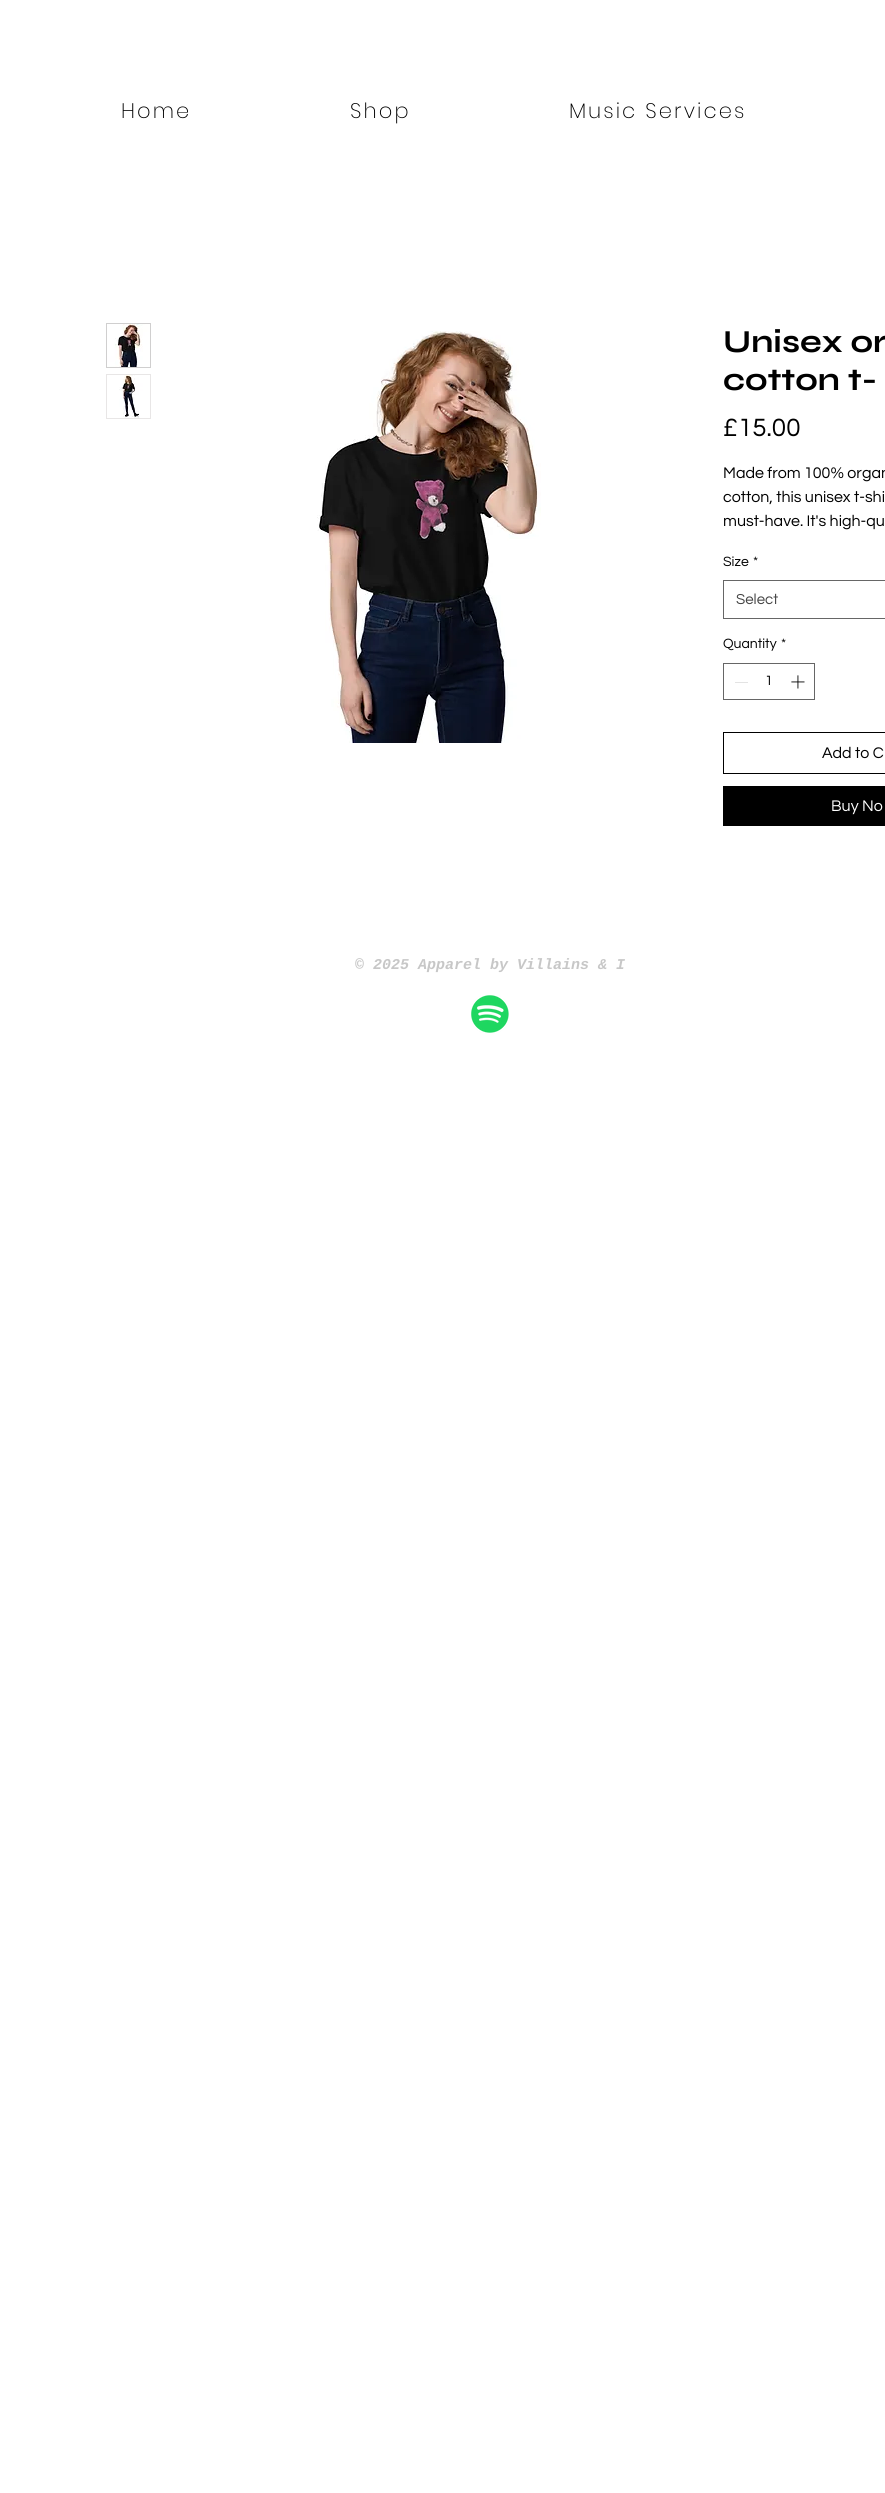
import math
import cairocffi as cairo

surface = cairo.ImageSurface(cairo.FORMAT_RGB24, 885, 2493)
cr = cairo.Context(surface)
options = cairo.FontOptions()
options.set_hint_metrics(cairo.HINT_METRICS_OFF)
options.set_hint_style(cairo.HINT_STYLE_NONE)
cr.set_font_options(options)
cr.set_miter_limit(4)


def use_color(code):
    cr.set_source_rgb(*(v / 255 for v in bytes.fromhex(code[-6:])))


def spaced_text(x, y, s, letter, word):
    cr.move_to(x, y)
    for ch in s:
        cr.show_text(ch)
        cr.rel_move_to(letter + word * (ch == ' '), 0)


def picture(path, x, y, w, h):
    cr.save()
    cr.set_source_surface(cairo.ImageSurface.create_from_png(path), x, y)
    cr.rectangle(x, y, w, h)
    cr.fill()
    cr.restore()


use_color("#ffffff")
cr.paint()
cr.select_font_face("Poppins ExtraLight")
cr.set_font_size(21)
use_color("#000000")
spaced_text(121, 118, "Home", 2.1, 0)
spaced_text(350, 118, "Shop", 2.1, 0)
spaced_text(569, 118, "Music Services", 2.1, 0)
cr.rectangle(106.5, 323.5, 44, 44)
use_color("#d0cfcf")
cr.set_line_width(1)
cr.stroke()
picture("img1.png", 107, 324, 43, 43)
use_color("#e8e6e6")
cr.rectangle(106, 374, 45, 45)
cr.fill()
picture("img2.png", 107, 375, 43, 43)
picture("img3.png", 317, 331, 224, 412)
cr.select_font_face("Syne", cairo.FONT_SLANT_NORMAL, cairo.FONT_WEIGHT_BOLD)
cr.set_font_size(32)
use_color("#000000")
cr.move_to(723, 352)
cr.show_text("Unisex or")
cr.move_to(723, 390)
cr.show_text("cotton t-")
cr.select_font_face("Questrial")
cr.set_font_size(26)
cr.move_to(723, 436)
cr.show_text("£15.00")
cr.set_font_size(16)
cr.move_to(723, 478)
cr.show_text("Made from 100% organ")
cr.move_to(723, 502)
cr.show_text("cotton, this unisex t-shi")
cr.move_to(723, 526)
cr.show_text("must-have. It's high-qu")
cr.set_font_size(14)
cr.move_to(723, 566)
cr.show_text("Size")
cr.move_to(753, 566)
cr.show_text("*")
cr.rectangle(723.5, 580.5, 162, 38)
use_color("#666666")
cr.stroke()
cr.set_font_size(15)
use_color("#444444")
cr.move_to(736, 604)
cr.show_text("Select")
cr.set_font_size(14)
use_color("#000000")
cr.move_to(723, 648)
cr.show_text("Quantity")
cr.move_to(781, 648)
cr.show_text("*")
cr.rectangle(723.5, 663.5, 91, 36)
use_color("#666666")
cr.stroke()
use_color("#e3e3e3")
cr.rectangle(735, 682, 13, 1)
cr.fill()
use_color("#000000")
cr.move_to(765, 685)
cr.show_text("1")
picture("img4.png", 791, 675, 14, 14)
cr.rectangle(723.5, 732.5, 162, 41)
cr.stroke()
cr.set_font_size(16)
cr.move_to(822, 758)
cr.show_text("Add to C")
cr.rectangle(723, 786, 162, 40)
cr.fill()
use_color("#ffffff")
cr.move_to(831, 811)
cr.show_text("Buy No")
cr.select_font_face("Liberation Mono", cairo.FONT_SLANT_ITALIC, cairo.FONT_WEIGHT_BOLD)
cr.set_font_size(15)
use_color("#c7c7c7")
cr.move_to(355, 969)
cr.show_text("© 2025 Apparel by Villains & I")
picture("img5.png", 471, 995, 38, 38)
surface.write_to_png("result.png")
